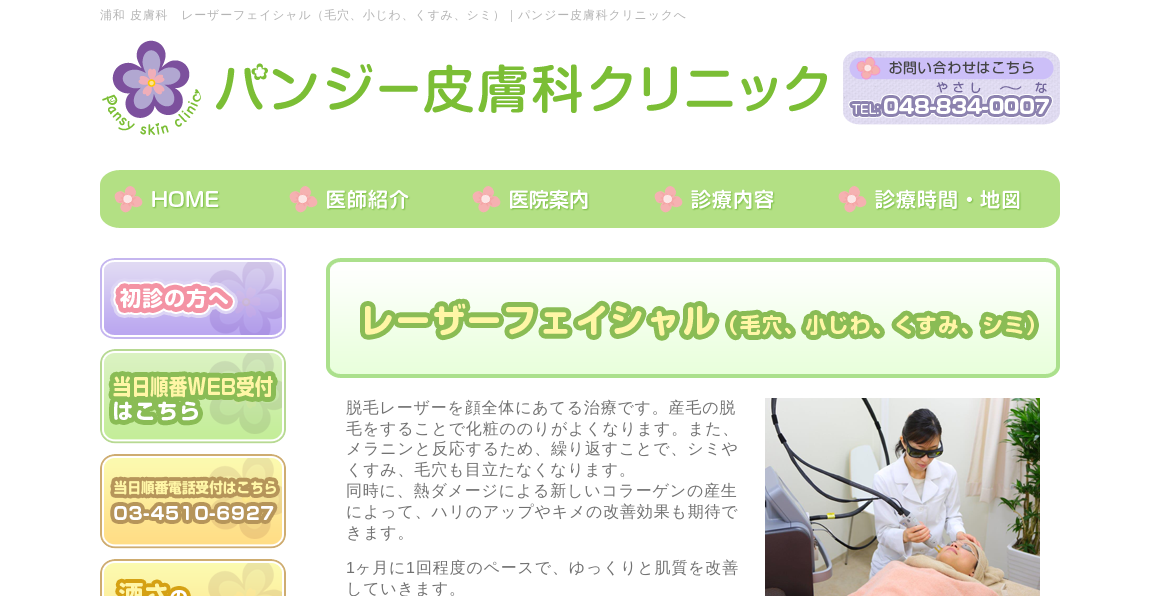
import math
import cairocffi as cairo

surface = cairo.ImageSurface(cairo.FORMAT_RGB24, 1159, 596)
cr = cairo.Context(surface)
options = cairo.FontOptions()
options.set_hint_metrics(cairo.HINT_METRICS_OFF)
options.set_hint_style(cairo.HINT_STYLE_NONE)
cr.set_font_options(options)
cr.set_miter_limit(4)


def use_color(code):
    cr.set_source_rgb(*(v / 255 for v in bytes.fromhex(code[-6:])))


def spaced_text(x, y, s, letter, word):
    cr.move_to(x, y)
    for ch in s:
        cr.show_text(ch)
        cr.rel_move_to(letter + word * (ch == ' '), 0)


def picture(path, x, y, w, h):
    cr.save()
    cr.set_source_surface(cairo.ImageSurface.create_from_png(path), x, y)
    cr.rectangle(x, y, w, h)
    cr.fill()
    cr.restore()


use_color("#ffffff")
cr.paint()
cr.select_font_face("WenQuanYi Zen Hei Medium")
cr.set_font_size(12)
use_color("#b4b4b4")
spaced_text(100, 19, "浦和 皮膚科　レーザーフェイシャル（毛穴、小じわ、くすみ、シミ）｜パンジー皮膚科クリニックへ", 0.8, 0)
picture("img1.png", 102, 40, 725, 95)
picture("img2.png", 843, 51, 217, 74)
picture("img3.png", 100, 170, 189, 58)
picture("img4.png", 289, 170, 183, 58)
picture("img5.png", 472, 170, 182, 58)
picture("img6.png", 654, 170, 184, 58)
picture("img7.png", 838, 170, 222, 58)
picture("img8.png", 100, 258, 186, 81)
picture("img9.png", 100, 349, 186, 95)
picture("img10.png", 100, 454, 186, 95)
picture("img11.png", 100, 559, 186, 37)
picture("img12.png", 326, 258, 734, 120)
cr.set_font_size(16)
use_color("#717171")
spaced_text(346, 413, "脱毛レーザーを顔全体にあてる治療です。産毛の脱", 0.8, 0)
spaced_text(346, 434, "毛をすることで化粧ののりがよくなります。また、", 0.8, 0)
spaced_text(346, 454, "メラニンと反応するため、繰り返すことで、シミや", 0.8, 0)
spaced_text(346, 475, "くすみ、毛穴も目立たなくなります。", 0.8, 0)
spaced_text(346, 496, "同時に、熱ダメージによる新しいコラーゲンの産生", 0.8, 0)
spaced_text(346, 517, "によって、ハリのアップやキメの改善効果も期待で", 0.8, 0)
spaced_text(346, 538, "きます。", 0.8, 0)
picture("img13.png", 765, 398, 275, 198)
cr.select_font_face("Liberation Sans")
spaced_text(346, 573, "1", 0.8, 0)
cr.select_font_face("WenQuanYi Zen Hei Medium")
spaced_text(355, 573, "ヶ月に", 0.8, 0)
cr.select_font_face("Liberation Sans")
spaced_text(406, 573, "1", 0.8, 0)
cr.select_font_face("WenQuanYi Zen Hei Medium")
spaced_text(416, 573, "回程度のペースで、ゆっくりと肌質を改善", 0.8, 0)
spaced_text(346, 594, "していきます。", 0.8, 0)
surface.write_to_png("result.png")
